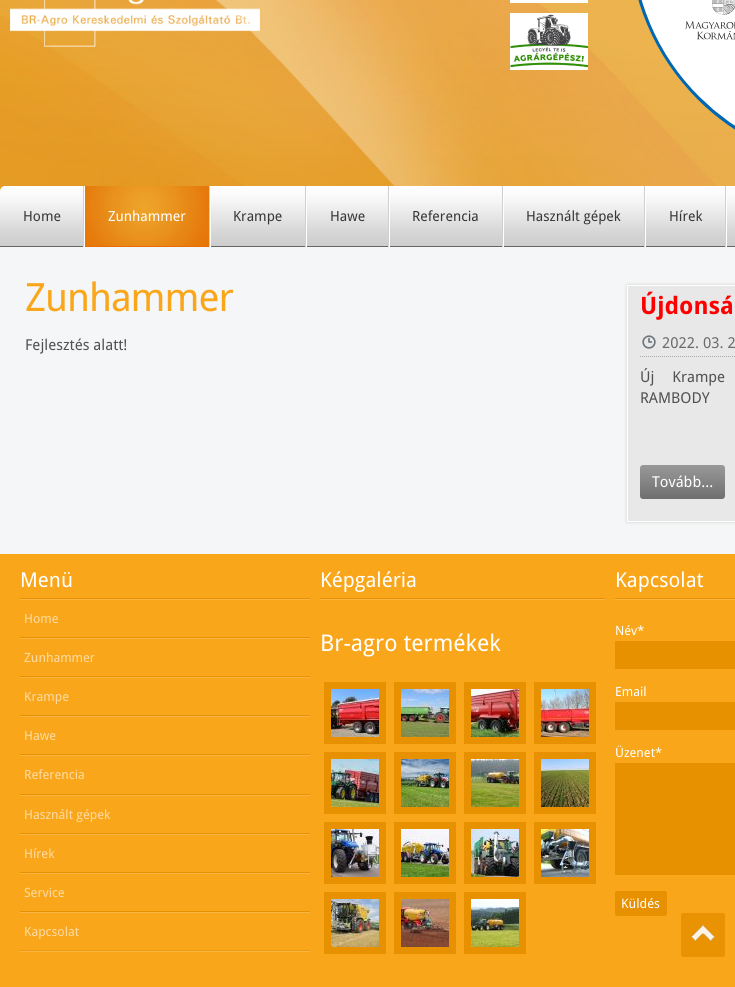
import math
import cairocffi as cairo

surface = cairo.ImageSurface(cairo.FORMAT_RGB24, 735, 987)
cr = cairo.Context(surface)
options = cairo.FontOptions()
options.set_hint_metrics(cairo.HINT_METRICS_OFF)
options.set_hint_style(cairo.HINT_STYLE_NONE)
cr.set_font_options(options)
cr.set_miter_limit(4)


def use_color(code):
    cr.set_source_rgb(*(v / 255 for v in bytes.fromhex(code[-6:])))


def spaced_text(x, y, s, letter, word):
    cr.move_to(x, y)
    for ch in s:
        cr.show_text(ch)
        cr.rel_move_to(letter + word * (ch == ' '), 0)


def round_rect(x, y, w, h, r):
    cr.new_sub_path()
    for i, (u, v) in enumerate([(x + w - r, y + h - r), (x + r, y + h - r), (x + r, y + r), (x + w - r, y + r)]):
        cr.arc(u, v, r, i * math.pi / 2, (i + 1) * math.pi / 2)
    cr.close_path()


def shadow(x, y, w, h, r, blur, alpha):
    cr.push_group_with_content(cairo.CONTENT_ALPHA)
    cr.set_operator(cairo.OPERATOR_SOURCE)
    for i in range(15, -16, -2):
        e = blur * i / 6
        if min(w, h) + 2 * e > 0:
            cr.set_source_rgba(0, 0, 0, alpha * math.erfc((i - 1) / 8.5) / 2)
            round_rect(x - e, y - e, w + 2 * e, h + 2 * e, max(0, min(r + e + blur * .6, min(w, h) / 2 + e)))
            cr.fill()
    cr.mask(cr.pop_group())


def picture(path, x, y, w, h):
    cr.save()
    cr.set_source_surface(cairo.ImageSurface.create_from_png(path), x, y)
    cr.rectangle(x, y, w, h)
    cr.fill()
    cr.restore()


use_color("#ffffff")
cr.paint()
picture("img1.png", 0, 0, 735, 191)
picture("img2.png", 10, 0, 250, 47)
use_color("#ffffff")
cr.rectangle(510, 0, 78, 3)
cr.fill()
picture("img3.png", 510, 13, 78, 57)
picture("img4.png", 638, 0, 97, 130)
picture("img5.png", 0, 186, 735, 60)
use_color("#666666")
cr.rectangle(0, 246, 735, 1)
cr.fill()
use_color("#d0d0d0")
cr.rectangle(83, 186, 1, 61)
cr.fill()
cr.select_font_face("Droid Sans")
cr.set_font_size(14)
use_color("#373737")
cr.move_to(23, 221)
cr.show_text("Home")
use_color("#e76d00")
cr.rectangle(85, 186, 124, 61)
cr.fill()
picture("img6.png", 85, 186, 124, 60)
use_color("#d0d0d0")
cr.rectangle(209, 186, 1, 61)
cr.fill()
use_color("#ffffff")
cr.rectangle(84, 186, 1, 61)
cr.fill()
cr.move_to(108, 221)
cr.show_text("Zunhammer")
use_color("#d0d0d0")
cr.rectangle(305, 186, 1, 61)
cr.fill()
use_color("#ffffff")
cr.rectangle(210, 186, 1, 61)
cr.fill()
use_color("#373737")
cr.move_to(233, 221)
cr.show_text("Krampe")
use_color("#d0d0d0")
cr.rectangle(388, 186, 1, 61)
cr.fill()
use_color("#ffffff")
cr.rectangle(306, 186, 1, 61)
cr.fill()
use_color("#373737")
cr.move_to(330, 221)
cr.show_text("Hawe")
use_color("#d0d0d0")
cr.rectangle(502, 186, 1, 61)
cr.fill()
use_color("#ffffff")
cr.rectangle(389, 186, 1, 61)
cr.fill()
use_color("#373737")
cr.move_to(412, 221)
cr.show_text("Referencia")
use_color("#d0d0d0")
cr.rectangle(644, 186, 1, 61)
cr.fill()
use_color("#ffffff")
cr.rectangle(503, 186, 1, 61)
cr.fill()
use_color("#373737")
cr.move_to(526, 221)
cr.show_text("Használt gépek")
use_color("#d0d0d0")
cr.rectangle(725, 186, 1, 61)
cr.fill()
use_color("#ffffff")
cr.rectangle(645, 186, 1, 61)
cr.fill()
use_color("#373737")
cr.move_to(669, 221)
cr.show_text("Hírek")
use_color("#ffffff")
cr.rectangle(726, 186, 1, 61)
cr.fill()
use_color("#f5f6f7")
cr.rectangle(0, 247, 735, 307)
cr.fill()
cr.set_font_size(39)
use_color("#f9a61a")
spaced_text(25, 311, "Zunhammer", -1, 0)
cr.set_font_size(15)
use_color("#515151")
cr.move_to(25, 350)
cr.show_text("Fejlesztés alatt!")
use_color("#cccccc")
shadow(627, 285, 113, 237, 0, 1.5, 1)
use_color("#e8e8e8")
cr.rectangle(627.5, 285.5, 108, 236)
cr.fill_preserve()
use_color("#ffffff")
cr.set_line_width(1)
cr.stroke()
cr.select_font_face("Droid Sans", cairo.FONT_SLANT_NORMAL, cairo.FONT_WEIGHT_BOLD)
cr.set_font_size(24)
use_color("#ff0000")
cr.move_to(640, 314)
cr.show_text("Újdonsá")
cr.new_path()
cr.move_to(640, 356.5)
cr.line_to(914, 356.5)
use_color("#abacb0")
cr.set_dash([1, 1])
cr.stroke()
picture("img7.png", 642, 335, 14, 14)
cr.select_font_face("Droid Sans")
cr.set_font_size(15)
use_color("#6a6a6a")
cr.move_to(662, 348)
cr.show_text("2022. 03. 2")
use_color("#515151")
spaced_text(640, 382, "Új Krampe", 0, 14)
cr.move_to(640, 403)
cr.show_text("RAMBODY")
gradient = cairo.LinearGradient(683, 465, 683, 499)
gradient.add_color_stop_rgba(0, 0.6, 0.6, 0.6, 1)
gradient.add_color_stop_rgba(1, 0.435, 0.435, 0.435, 1)
cr.set_source(gradient)
round_rect(640, 465, 85, 34, 3)
cr.fill()
use_color("#ffffff")
cr.move_to(652, 487)
cr.show_text("Tovább...")
use_color("#f9a61a")
cr.rectangle(0, 554, 735, 433)
cr.fill()
use_color("#e79100")
cr.rectangle(20, 598, 290, 1)
cr.fill()
cr.set_font_size(20.5)
use_color("#ffffff")
cr.move_to(20, 587)
cr.show_text("Menü")
use_color("#f9b644")
cr.rectangle(20, 599, 290, 1)
cr.fill()
use_color("#e79100")
cr.rectangle(20, 637, 290, 1)
cr.fill()
cr.set_font_size(12.75)
use_color("#fddba3")
cr.move_to(24, 623)
cr.show_text("Home")
use_color("#f9b644")
cr.rectangle(20, 638, 290, 1)
cr.fill()
use_color("#e79100")
cr.rectangle(20, 676, 290, 1)
cr.fill()
use_color("#fddba3")
cr.move_to(24, 662)
cr.show_text("Zunhammer")
use_color("#f9b644")
cr.rectangle(20, 677, 290, 1)
cr.fill()
use_color("#e79100")
cr.rectangle(20, 715, 290, 1)
cr.fill()
use_color("#fddba3")
cr.move_to(24, 701)
cr.show_text("Krampe")
use_color("#f9b644")
cr.rectangle(20, 716, 290, 1)
cr.fill()
use_color("#e79100")
cr.rectangle(20, 754, 290, 1)
cr.fill()
use_color("#fddba3")
cr.move_to(24, 740)
cr.show_text("Hawe")
use_color("#f9b644")
cr.rectangle(20, 755, 290, 1)
cr.fill()
use_color("#e79100")
cr.rectangle(20, 794, 290, 1)
cr.fill()
use_color("#fddba3")
cr.move_to(24, 779)
cr.show_text("Referencia")
use_color("#f9b644")
cr.rectangle(20, 795, 290, 1)
cr.fill()
use_color("#e79100")
cr.rectangle(20, 833, 290, 1)
cr.fill()
use_color("#fddba3")
cr.move_to(24, 819)
cr.show_text("Használt gépek")
use_color("#f9b644")
cr.rectangle(20, 834, 290, 1)
cr.fill()
use_color("#e79100")
cr.rectangle(20, 872, 290, 1)
cr.fill()
use_color("#fddba3")
cr.move_to(24, 858)
cr.show_text("Hírek")
use_color("#f9b644")
cr.rectangle(20, 873, 290, 1)
cr.fill()
use_color("#e79100")
cr.rectangle(20, 911, 290, 1)
cr.fill()
use_color("#fddba3")
cr.move_to(24, 897)
cr.show_text("Service")
use_color("#f9b644")
cr.rectangle(20, 912, 290, 1)
cr.fill()
cr.rectangle(20, 951, 290, 1)
cr.fill()
use_color("#ee990a")
cr.rectangle(20, 950, 290, 1)
cr.fill()
use_color("#fddba3")
cr.move_to(24, 936)
cr.show_text("Kapcsolat")
use_color("#f9b644")
cr.rectangle(320, 599, 285, 1)
cr.fill()
use_color("#e79100")
cr.rectangle(320, 598, 285, 1)
cr.fill()
cr.set_font_size(20.5)
use_color("#ffffff")
cr.move_to(320, 587)
cr.show_text("Képgaléria")
cr.set_font_size(23)
cr.move_to(320, 651)
cr.show_text("Br-agro termékek")
use_color("#e79100")
cr.rectangle(324, 682, 62, 62)
cr.fill()
picture("img8.png", 331, 689, 48, 48)
cr.rectangle(394, 682, 62, 62)
cr.fill()
picture("img9.png", 401, 689, 48, 48)
cr.rectangle(464, 682, 62, 62)
cr.fill()
picture("img10.png", 471, 689, 48, 48)
cr.rectangle(534, 682, 62, 62)
cr.fill()
picture("img11.png", 541, 689, 48, 48)
cr.rectangle(324, 752, 62, 62)
cr.fill()
picture("img12.png", 331, 759, 48, 48)
cr.rectangle(394, 752, 62, 62)
cr.fill()
picture("img13.png", 401, 759, 48, 48)
cr.rectangle(464, 752, 62, 62)
cr.fill()
picture("img14.png", 471, 759, 48, 48)
cr.rectangle(534, 752, 62, 62)
cr.fill()
picture("img15.png", 541, 759, 48, 48)
cr.rectangle(324, 822, 62, 62)
cr.fill()
picture("img16.png", 331, 829, 48, 48)
cr.rectangle(394, 822, 62, 62)
cr.fill()
picture("img17.png", 401, 829, 48, 48)
cr.rectangle(464, 822, 62, 62)
cr.fill()
picture("img18.png", 471, 829, 48, 48)
cr.rectangle(534, 822, 62, 62)
cr.fill()
picture("img19.png", 541, 829, 48, 48)
cr.rectangle(324, 892, 62, 62)
cr.fill()
picture("img20.png", 331, 899, 48, 48)
cr.rectangle(394, 892, 62, 62)
cr.fill()
picture("img21.png", 401, 899, 48, 48)
cr.rectangle(464, 892, 62, 62)
cr.fill()
picture("img22.png", 471, 899, 48, 48)
use_color("#f9b644")
cr.rectangle(615, 599, 120, 1)
cr.fill()
use_color("#e79100")
cr.rectangle(615, 598, 120, 1)
cr.fill()
cr.set_font_size(20.5)
use_color("#ffffff")
cr.move_to(615, 587)
cr.show_text("Kapcsolat")
cr.set_font_size(12.75)
cr.move_to(615, 635)
cr.show_text("Név*")
use_color("#e79100")
cr.rectangle(615, 641, 120, 28)
cr.fill()
use_color("#ffffff")
cr.move_to(615, 696)
cr.show_text("Email")
use_color("#e79100")
cr.rectangle(615, 702, 120, 28)
cr.fill()
use_color("#ffffff")
cr.move_to(615, 757)
cr.show_text("Üzenet*")
use_color("#e79100")
cr.rectangle(615, 763, 120, 112)
cr.fill()
round_rect(615, 891, 52, 25, 2)
cr.fill()
cr.set_font_size(13)
use_color("#ffffff")
cr.move_to(621, 908)
cr.show_text("Küldés")
use_color("#e99303")
round_rect(681, 913, 44, 44, 2)
cr.fill()
picture("img23.png", 691, 925, 24, 16)
surface.write_to_png("result.png")
